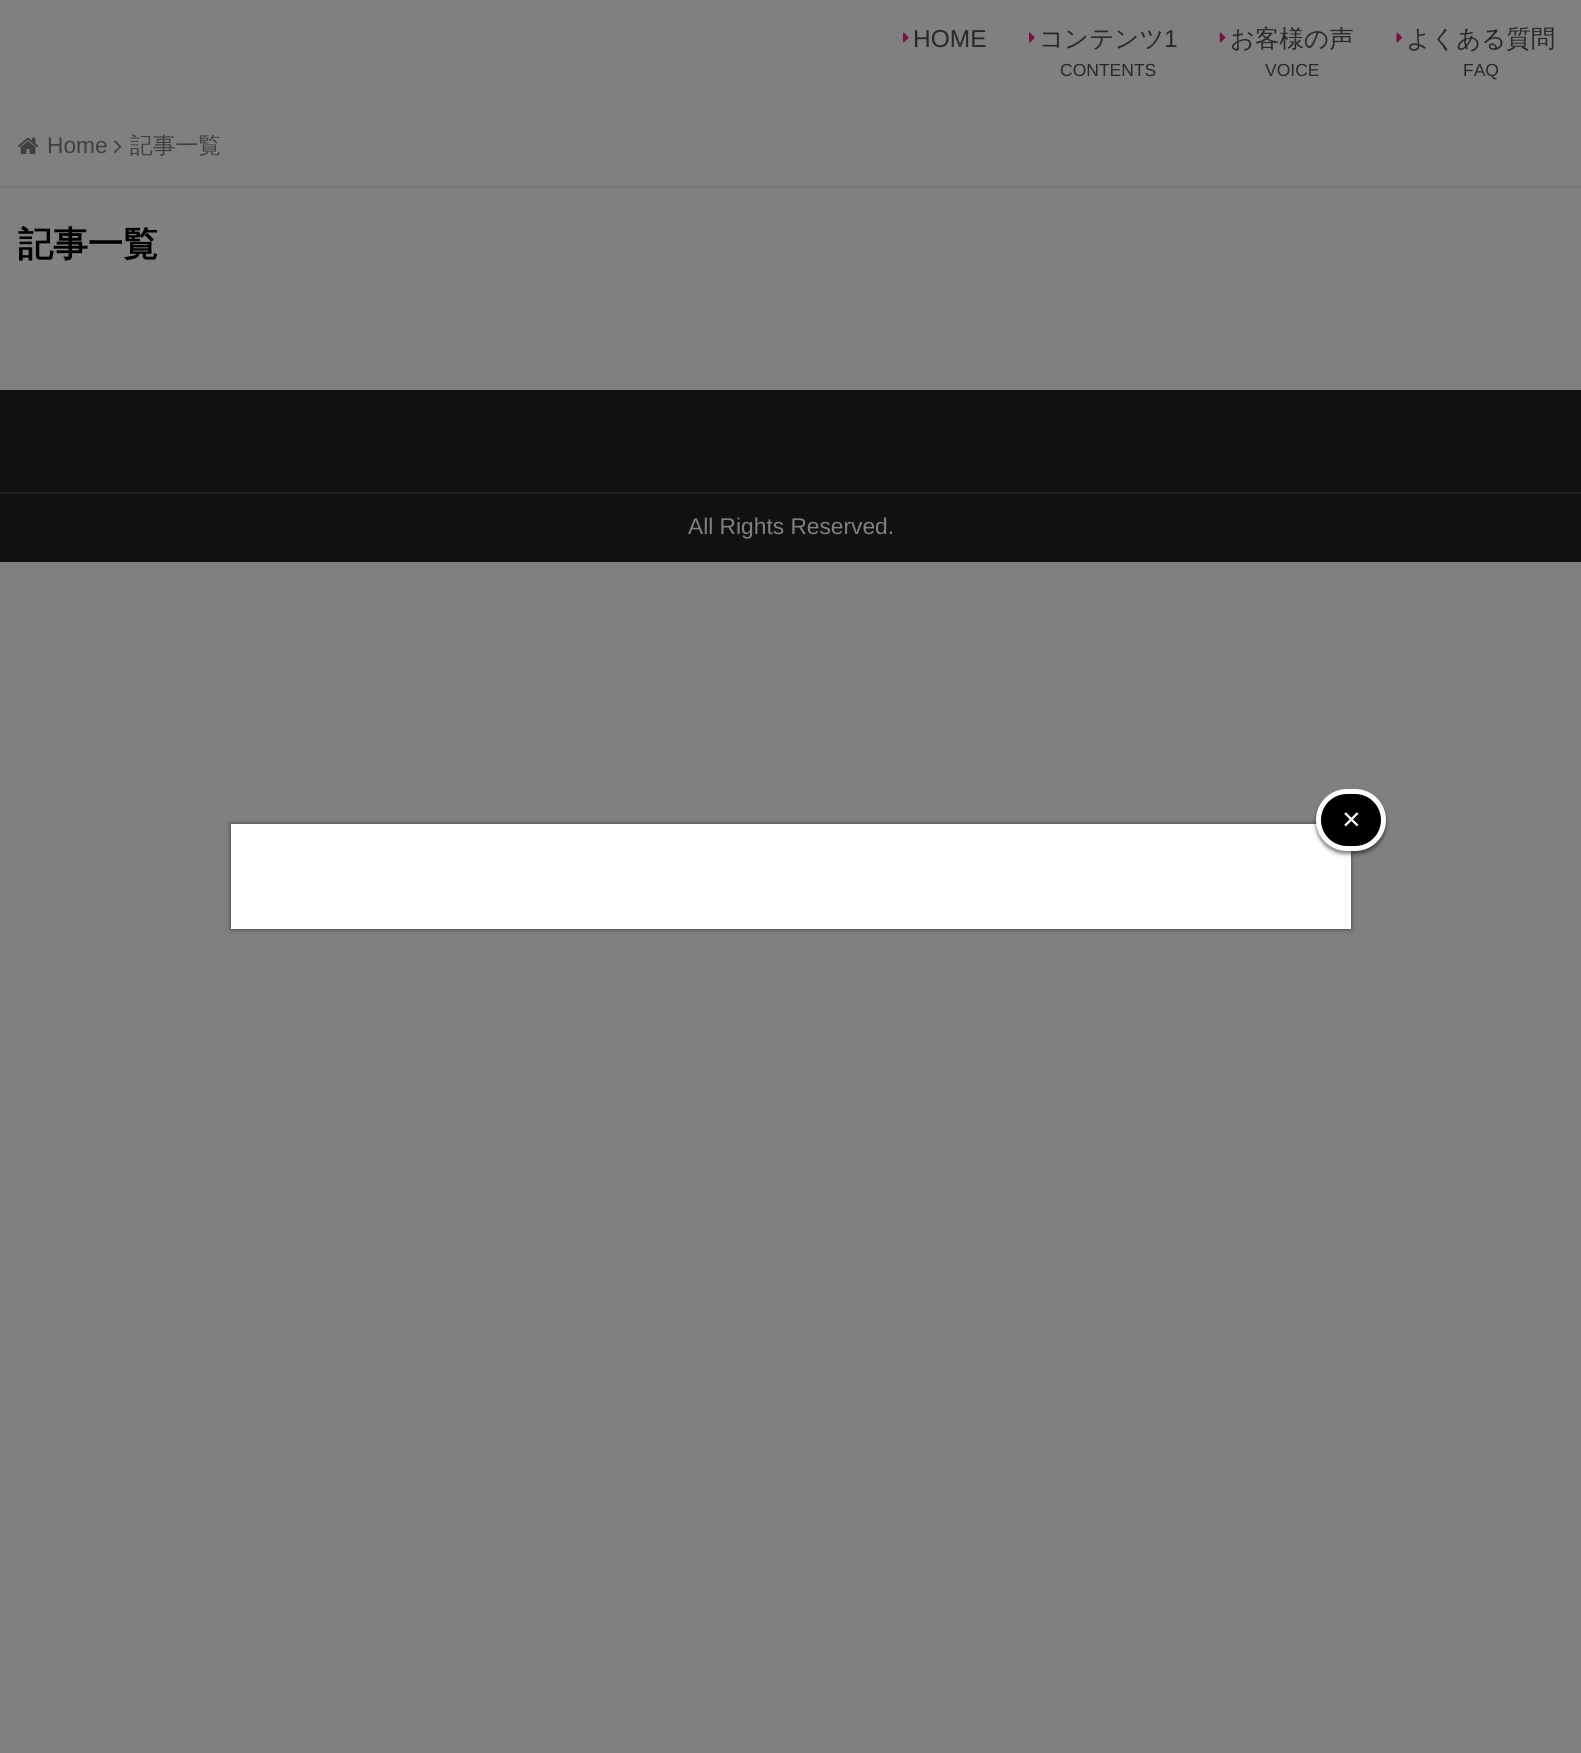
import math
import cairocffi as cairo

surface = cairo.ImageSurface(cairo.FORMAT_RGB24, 1581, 1753)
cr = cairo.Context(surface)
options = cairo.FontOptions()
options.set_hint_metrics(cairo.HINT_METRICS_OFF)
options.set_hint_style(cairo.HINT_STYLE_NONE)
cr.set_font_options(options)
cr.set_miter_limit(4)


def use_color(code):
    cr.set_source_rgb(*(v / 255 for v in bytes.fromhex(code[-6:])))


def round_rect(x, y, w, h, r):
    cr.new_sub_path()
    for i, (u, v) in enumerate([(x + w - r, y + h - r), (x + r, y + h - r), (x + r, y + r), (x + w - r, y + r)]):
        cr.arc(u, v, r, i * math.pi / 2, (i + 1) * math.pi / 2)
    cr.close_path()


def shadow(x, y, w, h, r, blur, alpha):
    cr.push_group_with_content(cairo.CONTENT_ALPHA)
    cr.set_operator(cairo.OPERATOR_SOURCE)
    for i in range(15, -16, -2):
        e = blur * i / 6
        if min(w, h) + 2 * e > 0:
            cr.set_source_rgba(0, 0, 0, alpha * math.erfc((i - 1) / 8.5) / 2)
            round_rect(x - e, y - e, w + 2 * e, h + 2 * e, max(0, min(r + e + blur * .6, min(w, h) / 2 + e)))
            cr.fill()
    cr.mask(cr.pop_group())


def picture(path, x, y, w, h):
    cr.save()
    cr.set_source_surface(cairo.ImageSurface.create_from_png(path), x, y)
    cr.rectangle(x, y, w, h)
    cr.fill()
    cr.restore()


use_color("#808080")
cr.paint()
picture("img1.png", 903, 32, 6, 11)
cr.select_font_face("Liberation Sans")
cr.set_font_size(24.5)
use_color("#282828")
cr.move_to(913, 47)
cr.show_text("HOME")
picture("img1.png", 1029, 32, 6, 11)
cr.select_font_face("WenQuanYi Zen Hei Medium")
cr.move_to(1039, 47)
cr.show_text("コンテンツ")
cr.select_font_face("Liberation Sans")
cr.move_to(1164, 47)
cr.show_text("1")
cr.set_font_size(17.5)
cr.move_to(1060, 76)
cr.show_text("CONTENTS")
picture("img2.png", 1219, 32, 7, 11)
cr.select_font_face("WenQuanYi Zen Hei Medium")
cr.set_font_size(24.5)
cr.move_to(1230, 47)
cr.show_text("お客様の声")
cr.select_font_face("Liberation Sans")
cr.set_font_size(17.5)
cr.move_to(1265, 76)
cr.show_text("VOICE")
picture("img3.png", 1396, 32, 7, 11)
cr.select_font_face("WenQuanYi Zen Hei Medium")
cr.set_font_size(24.5)
cr.move_to(1406, 47)
cr.show_text("よくある質問")
cr.select_font_face("Liberation Sans")
cr.set_font_size(17.5)
cr.move_to(1463, 76)
cr.show_text("FAQ")
use_color("#797979")
cr.rectangle(0, 186, 1581, 2)
cr.fill()
picture("img4.png", 17, 137, 22, 17)
cr.set_font_size(22.75)
use_color("#404040")
cr.move_to(47, 153)
cr.show_text("Home")
picture("img5.png", 114, 140, 8, 13)
cr.select_font_face("WenQuanYi Zen Hei Medium")
cr.move_to(130, 153)
cr.show_text("記事一覧")
cr.select_font_face("WenQuanYi Zen Hei", cairo.FONT_SLANT_NORMAL, cairo.FONT_WEIGHT_BOLD)
cr.set_font_size(35)
use_color("#000000")
cr.move_to(18, 256)
cr.show_text("記事一覧")
use_color("#111111")
cr.rectangle(0, 390, 1581, 172)
cr.fill()
use_color("#222222")
cr.rectangle(0, 492, 1581, 2)
cr.fill()
cr.select_font_face("Liberation Sans")
cr.set_font_size(22.75)
use_color("#808080")
cr.move_to(688, 534)
cr.show_text("All Rights Reserved.")
use_color("#000000")
shadow(231, 824, 1120, 105, 0, 2.5, 0.5)
use_color("#ffffff")
cr.rectangle(231, 824, 1120, 105)
cr.fill()
use_color("#000000")
shadow(1316, 793, 70, 61, 30.5, 2, 0.5)
use_color("#000000")
round_rect(1318.5, 791.5, 65, 57, 28.5)
cr.fill_preserve()
use_color("#ffffff")
cr.set_line_width(5)
cr.stroke()
cr.set_font_size(32)
cr.move_to(1342, 830)
cr.show_text("×")
surface.write_to_png("result.png")
